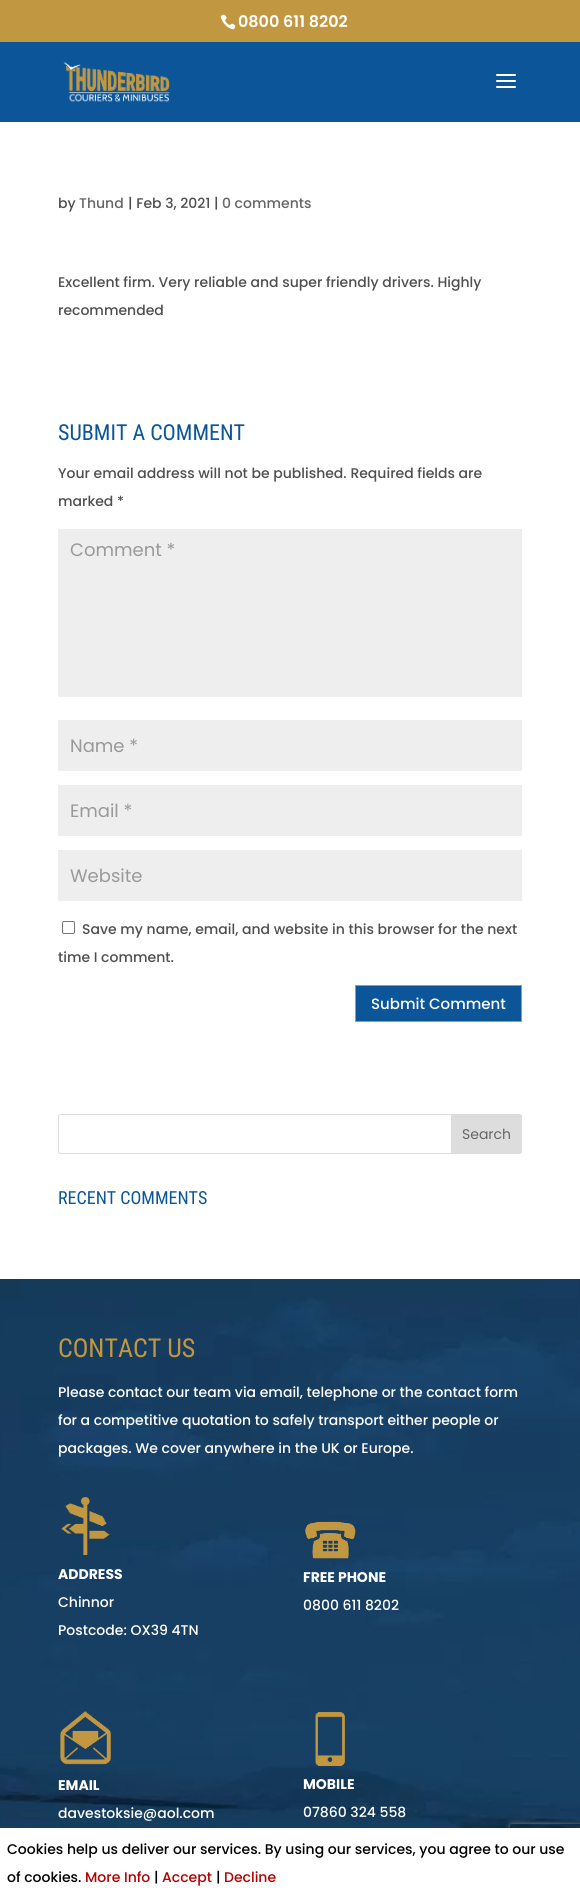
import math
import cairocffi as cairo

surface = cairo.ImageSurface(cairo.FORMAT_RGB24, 580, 1898)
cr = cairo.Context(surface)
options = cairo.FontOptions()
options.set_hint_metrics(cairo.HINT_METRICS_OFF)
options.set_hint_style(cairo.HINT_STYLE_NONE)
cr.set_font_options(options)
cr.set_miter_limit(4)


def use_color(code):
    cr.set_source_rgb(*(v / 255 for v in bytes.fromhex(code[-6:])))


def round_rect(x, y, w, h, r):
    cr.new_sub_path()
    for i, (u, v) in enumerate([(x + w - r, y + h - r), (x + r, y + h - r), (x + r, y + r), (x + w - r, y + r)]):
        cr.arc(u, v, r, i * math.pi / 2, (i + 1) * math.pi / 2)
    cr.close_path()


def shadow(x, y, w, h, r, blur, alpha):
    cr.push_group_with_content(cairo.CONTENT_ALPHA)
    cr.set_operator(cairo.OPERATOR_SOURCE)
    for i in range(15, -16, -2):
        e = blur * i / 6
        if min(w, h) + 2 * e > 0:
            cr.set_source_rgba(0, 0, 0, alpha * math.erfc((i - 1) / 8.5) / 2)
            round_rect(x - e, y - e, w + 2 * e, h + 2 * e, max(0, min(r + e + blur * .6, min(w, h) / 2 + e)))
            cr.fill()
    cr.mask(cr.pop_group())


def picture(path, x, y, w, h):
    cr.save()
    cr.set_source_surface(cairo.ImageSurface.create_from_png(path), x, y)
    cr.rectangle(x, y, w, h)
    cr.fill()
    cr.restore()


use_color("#ffffff")
cr.paint()
use_color("#c29741")
cr.rectangle(0, 0, 580, 42)
cr.fill()
picture("img1.png", 220, 14, 16, 16)
cr.select_font_face("Poppins SemiBold")
cr.set_font_size(16)
use_color("#ffffff")
cr.move_to(238, 27)
cr.show_text("0800 611 8202")
use_color("#0b5598")
cr.rectangle(0, 42, 580, 80)
cr.fill()
picture("img2.png", 63, 62, 107, 40)
picture("img3.png", 496, 74, 20, 14)
cr.select_font_face("Poppins Medium")
cr.set_font_size(14)
use_color("#4f4f4f")
cr.move_to(58, 208)
cr.show_text("by")
use_color("#666666")
cr.move_to(79, 208)
cr.show_text("Thund")
use_color("#4f4f4f")
cr.move_to(128, 208)
cr.show_text("| Feb 3, 2021 |")
use_color("#666666")
cr.move_to(222, 208)
cr.show_text("0 comments")
use_color("#4f4f4f")
cr.move_to(58, 287)
cr.show_text("Excellent firm. Very reliable and super friendly drivers. Highly")
cr.move_to(58, 315)
cr.show_text("recommended")
cr.select_font_face("Roboto Condensed")
cr.set_font_size(22)
use_color("#0b5598")
cr.move_to(58, 440)
cr.show_text("SUBMIT A COMMENT")
cr.select_font_face("Poppins Medium")
cr.set_font_size(14)
use_color("#4f4f4f")
cr.move_to(58, 478)
cr.show_text("Your email address will not be published. Required fields are")
cr.move_to(58, 506)
cr.show_text("marked *")
use_color("#eeeeee")
cr.rectangle(58, 529, 464, 168)
cr.fill()
cr.select_font_face("Poppins")
cr.set_font_size(18)
use_color("#999999")
cr.move_to(70, 556)
cr.show_text("Comment *")
use_color("#eeeeee")
cr.rectangle(58, 720, 464, 51)
cr.fill()
use_color("#999999")
cr.move_to(70, 752)
cr.show_text("Name *")
use_color("#eeeeee")
cr.rectangle(58, 785, 464, 51)
cr.fill()
use_color("#999999")
cr.move_to(70, 817)
cr.show_text("Email *")
use_color("#eeeeee")
cr.rectangle(58, 850, 464, 51)
cr.fill()
use_color("#999999")
cr.move_to(70, 882)
cr.show_text("Website")
round_rect(62.5, 921.5, 12, 12, 1.5)
use_color("#767676")
cr.set_line_width(1)
cr.stroke()
cr.select_font_face("Poppins Medium")
cr.set_font_size(14)
use_color("#4f4f4f")
cr.move_to(82, 934)
cr.show_text("Save my name, email, and website in this browser for the next")
cr.move_to(58, 962)
cr.show_text("time I comment.")
use_color("#0b5598")
cr.rectangle(355.5, 985.5, 166, 36)
cr.fill_preserve()
use_color("#c29741")
cr.stroke()
cr.set_font_size(15)
use_color("#ffffff")
cr.move_to(371, 1009)
cr.show_text("Submit Comment")
round_rect(58.5, 1114.5, 463, 39, 2.5)
use_color("#dddddd")
cr.stroke()
cr.new_path()
cr.move_to(451.5, 1114.5)
cr.line_to(519, 1114.5)
cr.curve_to(520.5, 1114.5, 521.5, 1115.5, 521.5, 1117)
cr.line_to(521.5, 1151)
cr.curve_to(521.5, 1152.5, 520.5, 1153.5, 519, 1153.5)
cr.line_to(451.5, 1153.5)
cr.close_path()
cr.fill_preserve()
cr.stroke()
cr.select_font_face("Poppins")
cr.set_font_size(14)
use_color("#666666")
cr.move_to(462, 1139)
cr.show_text("Search")
cr.select_font_face("Roboto Condensed")
cr.set_font_size(18)
use_color("#0b5598")
cr.move_to(58, 1204)
cr.show_text("RECENT COMMENTS")
picture("img4.png", 0, 1279, 580, 549)
cr.set_font_size(26)
use_color("#c29741")
cr.move_to(58, 1357)
cr.show_text("CONTACT US")
cr.select_font_face("Poppins Medium")
cr.set_font_size(14)
use_color("#ffffff")
cr.move_to(58, 1397)
cr.show_text("Please contact our team via email, telephone or the contact form")
cr.move_to(58, 1425)
cr.show_text("for a competitive quotation to safely transport either people or")
cr.move_to(58, 1453)
cr.show_text("packages. We cover anywhere in the UK or Europe.")
picture("img5.png", 61, 1497, 49, 58)
cr.select_font_face("Poppins", cairo.FONT_SLANT_NORMAL, cairo.FONT_WEIGHT_BOLD)
cr.move_to(58, 1579)
cr.show_text("ADDRESS")
cr.select_font_face("Poppins Medium")
cr.move_to(58, 1607)
cr.show_text("Chinnor")
cr.move_to(58, 1635)
cr.show_text("Postcode: OX39 4TN")
picture("img6.png", 305, 1521, 51, 38)
cr.select_font_face("Poppins", cairo.FONT_SLANT_NORMAL, cairo.FONT_WEIGHT_BOLD)
cr.move_to(303, 1582)
cr.show_text("FREE PHONE")
cr.select_font_face("Poppins Medium")
cr.move_to(303, 1610)
cr.show_text("0800 611 8202")
picture("img7.png", 60, 1711, 51, 54)
cr.select_font_face("Poppins", cairo.FONT_SLANT_NORMAL, cairo.FONT_WEIGHT_BOLD)
cr.move_to(58, 1790)
cr.show_text("EMAIL")
cr.select_font_face("Poppins Medium")
cr.move_to(58, 1818)
cr.show_text("davestoksie@aol.com")
picture("img8.png", 315, 1711, 30, 55)
cr.select_font_face("Poppins", cairo.FONT_SLANT_NORMAL, cairo.FONT_WEIGHT_BOLD)
cr.move_to(303, 1789)
cr.show_text("MOBILE")
cr.select_font_face("Poppins Medium")
cr.move_to(303, 1817)
cr.show_text("07860 324 558")
cr.save()
cr.set_fill_rule(cairo.FILL_RULE_EVEN_ODD)
cr.new_path()
cr.move_to(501, 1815)
cr.line_to(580, 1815)
cr.line_to(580, 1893)
cr.line_to(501, 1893)
cr.close_path()
cr.move_to(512, 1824)
cr.line_to(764, 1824)
cr.curve_to(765, 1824, 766, 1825, 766, 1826)
cr.line_to(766, 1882)
cr.curve_to(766, 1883, 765, 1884, 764, 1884)
cr.line_to(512, 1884)
cr.curve_to(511, 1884, 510, 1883, 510, 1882)
cr.line_to(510, 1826)
cr.curve_to(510, 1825, 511, 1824, 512, 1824)
cr.close_path()
cr.clip()
use_color("#808080")
shadow(510, 1824, 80, 60, 2, 2.5, 1)
cr.restore()
cr.rectangle(505, 1828, 75, 61)
cr.fill()
use_color("#000000")
cr.move_to(7, 1854)
cr.show_text("Cookies help us deliver our services. By using our services, you agree to our use")
cr.move_to(7, 1882)
cr.show_text("of cookies.")
use_color("#b30000")
cr.move_to(85, 1882)
cr.show_text("More Info")
use_color("#000000")
cr.move_to(154, 1882)
cr.show_text("|")
use_color("#b30000")
cr.move_to(162, 1882)
cr.show_text("Accept")
use_color("#000000")
cr.move_to(216, 1882)
cr.show_text("|")
use_color("#b30000")
cr.move_to(224, 1882)
cr.show_text("Decline")
surface.write_to_png("result.png")
